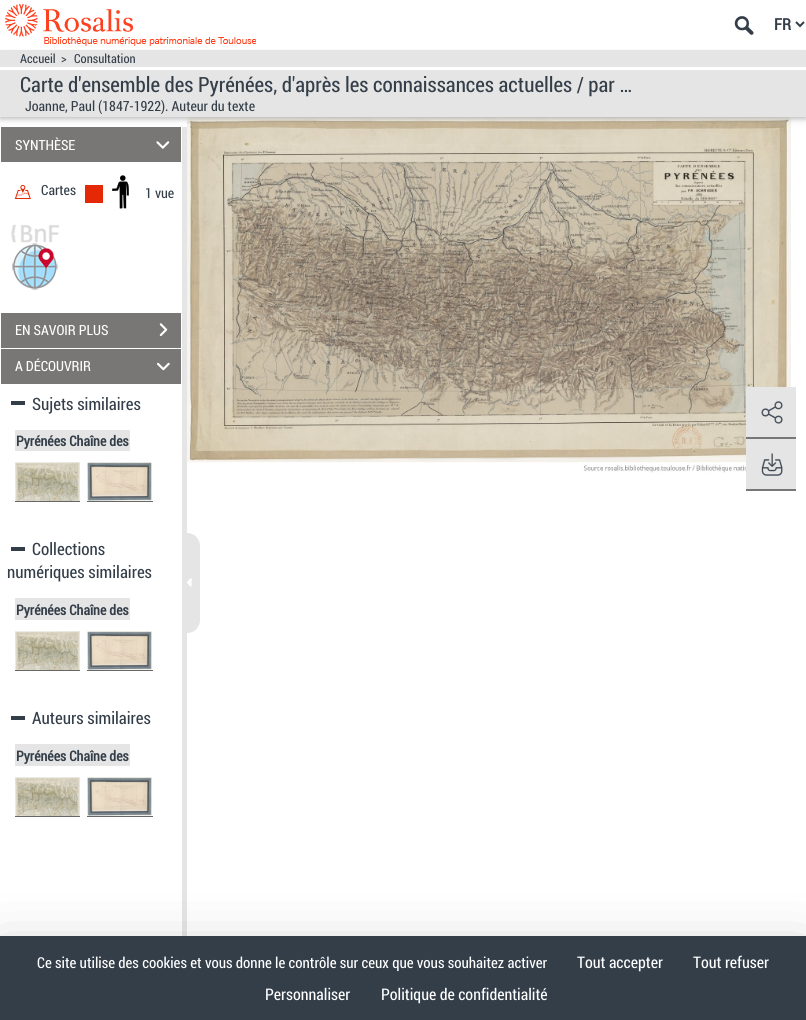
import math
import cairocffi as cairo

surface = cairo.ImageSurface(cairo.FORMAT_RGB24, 806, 1020)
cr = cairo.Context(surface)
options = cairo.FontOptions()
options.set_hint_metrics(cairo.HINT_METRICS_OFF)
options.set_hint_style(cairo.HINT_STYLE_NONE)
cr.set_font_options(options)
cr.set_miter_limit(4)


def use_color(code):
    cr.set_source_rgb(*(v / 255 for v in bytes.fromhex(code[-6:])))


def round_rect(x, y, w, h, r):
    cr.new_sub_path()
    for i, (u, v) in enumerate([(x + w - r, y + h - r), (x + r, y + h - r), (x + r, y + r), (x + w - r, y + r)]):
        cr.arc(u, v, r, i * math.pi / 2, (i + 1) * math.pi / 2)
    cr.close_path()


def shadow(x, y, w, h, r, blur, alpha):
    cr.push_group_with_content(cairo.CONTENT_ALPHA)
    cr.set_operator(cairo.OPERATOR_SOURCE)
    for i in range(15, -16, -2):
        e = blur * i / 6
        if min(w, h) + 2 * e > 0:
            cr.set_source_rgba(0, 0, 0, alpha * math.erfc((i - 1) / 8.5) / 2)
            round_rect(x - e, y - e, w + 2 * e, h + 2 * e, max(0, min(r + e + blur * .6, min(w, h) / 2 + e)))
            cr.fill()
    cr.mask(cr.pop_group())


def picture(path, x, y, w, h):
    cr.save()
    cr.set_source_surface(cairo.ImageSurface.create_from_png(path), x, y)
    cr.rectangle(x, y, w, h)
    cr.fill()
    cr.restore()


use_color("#ffffff")
cr.paint()
picture("img14.png", 187, 117, 604, 356)
cr.save()
cr.rectangle(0, 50, 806, 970)
cr.clip()
use_color("#000000")
shadow(0, 52, 806, 67, 0, 5, 0.12)
cr.restore()
use_color("#000000")
shadow(0, 52, 806, 67, 0, 2, 0.16)
picture("img1.png", 5, 4, 251, 42)
picture("img2.png", 734, 16, 20, 19)
cr.new_path()
cr.move_to(796, 22)
cr.line_to(800, 26)
cr.line_to(804, 22)
use_color("#333e49")
cr.stroke()
cr.select_font_face("Roboto Condensed", cairo.FONT_SLANT_NORMAL, cairo.FONT_WEIGHT_BOLD)
cr.set_font_size(16)
cr.move_to(774, 30)
cr.show_text("FR")
use_color("#e5e5e5")
cr.rectangle(0, 50, 806, 67)
cr.fill()
use_color("#ffffff")
cr.rectangle(0, 67, 806, 3)
cr.fill()
cr.select_font_face("Roboto Condensed")
cr.set_font_size(12.5)
use_color("#333e49")
cr.move_to(20, 63)
cr.show_text("Accueil")
cr.move_to(61, 63)
cr.show_text(">")
cr.move_to(74, 63)
cr.show_text("Consultation")
cr.set_font_size(21)
cr.move_to(20, 92)
cr.show_text("Carte d'ensemble des Pyrénées, d'après les connaissances actuelles / par …")
cr.set_font_size(14)
cr.move_to(25, 111)
cr.show_text("Joanne, Paul (1847-1922). Auteur du texte")
use_color("#e5e5e5")
cr.rectangle(182, 127, 5, 809)
cr.fill()
use_color("#797676")
cr.rectangle(1, 127, 180, 35)
cr.fill()
use_color("#ffffff")
cr.move_to(15, 150)
cr.show_text("SYNTHÈSE")
picture("img3.png", 156, 141, 14, 8)
picture("img4.png", 14, 184, 17, 15)
use_color("#333e49")
cr.move_to(41, 195)
cr.show_text("Cartes")
use_color("#e52805")
cr.rectangle(85, 185, 18, 18)
cr.fill()
picture("img5.png", 112, 175, 17, 34)
use_color("#333e49")
cr.move_to(145, 198)
cr.show_text("1 vue")
picture("img6.png", 11, 224, 49, 19)
picture("img7.png", 12, 243, 46, 47)
use_color("#797676")
cr.rectangle(1, 313, 180, 35)
cr.fill()
use_color("#ffffff")
cr.move_to(15, 335)
cr.show_text("EN SAVOIR PLUS")
picture("img8.png", 159, 323, 9, 14)
use_color("#797676")
cr.rectangle(1, 349, 180, 35)
cr.fill()
use_color("#ffffff")
cr.move_to(15, 371)
cr.show_text("A DÉCOUVRIR")
picture("img9.png", 156, 362, 14, 9)
cr.set_font_size(17)
use_color("#333e49")
cr.move_to(32, 410)
cr.show_text("Sujets similaires")
cr.rectangle(11, 401, 14, 4)
cr.fill()
use_color("#e5e5e5")
cr.rectangle(15, 430, 115, 21)
cr.fill()
cr.select_font_face("Roboto Condensed", cairo.FONT_SLANT_NORMAL, cairo.FONT_WEIGHT_BOLD)
cr.set_font_size(14)
use_color("#333e49")
cr.move_to(16, 446)
cr.show_text("Pyrénées Chaîne des")
picture("img10.png", 15, 462, 65, 39)
use_color("#676767")
cr.rectangle(15, 501, 65, 1)
cr.fill()
picture("img11.png", 87, 462, 65, 39)
cr.rectangle(87, 501, 66, 1)
cr.fill()
cr.select_font_face("Roboto Condensed")
cr.set_font_size(17)
use_color("#333e49")
cr.move_to(32, 555)
cr.show_text("Collections")
cr.rectangle(11, 547, 14, 4)
cr.fill()
cr.move_to(7, 578)
cr.show_text("numériques similaires")
use_color("#e5e5e5")
cr.rectangle(15, 598, 115, 22)
cr.fill()
cr.select_font_face("Roboto Condensed", cairo.FONT_SLANT_NORMAL, cairo.FONT_WEIGHT_BOLD)
cr.set_font_size(14)
use_color("#333e49")
cr.move_to(16, 615)
cr.show_text("Pyrénées Chaîne des")
picture("img10.png", 15, 631, 65, 39)
use_color("#676767")
cr.rectangle(15, 670, 65, 1)
cr.fill()
picture("img11.png", 87, 631, 65, 39)
cr.rectangle(87, 670, 66, 1)
cr.fill()
cr.select_font_face("Roboto Condensed")
cr.set_font_size(17)
use_color("#333e49")
cr.move_to(32, 724)
cr.show_text("Auteurs similaires")
cr.rectangle(11, 716, 14, 4)
cr.fill()
use_color("#e5e5e5")
cr.rectangle(15, 744, 115, 22)
cr.fill()
cr.select_font_face("Roboto Condensed", cairo.FONT_SLANT_NORMAL, cairo.FONT_WEIGHT_BOLD)
cr.set_font_size(14)
use_color("#333e49")
cr.move_to(16, 761)
cr.show_text("Pyrénées Chaîne des")
picture("img12.png", 15, 777, 65, 39)
use_color("#676767")
cr.rectangle(15, 816, 65, 1)
cr.fill()
picture("img11.png", 87, 777, 65, 39)
cr.rectangle(87, 816, 66, 1)
cr.fill()
use_color("#e5e5e5")
cr.new_path()
cr.move_to(187.5, 533.5)
cr.line_to(187, 533.5)
cr.curve_to(194, 533.5, 199.5, 539, 199.5, 546)
cr.line_to(199.5, 620)
cr.curve_to(199.5, 627, 194, 632.5, 187, 632.5)
cr.line_to(187.5, 632.5)
cr.close_path()
cr.fill_preserve()
cr.set_line_width(1)
cr.stroke()
picture("img13.png", 186, 578, 6, 9)
cr.rectangle(746, 387, 50, 50)
cr.fill()
picture("img15.png", 761, 401, 22, 23)
use_color("#797676")
cr.rectangle(746, 437, 50, 2)
cr.fill()
use_color("#e5e5e5")
cr.rectangle(746, 439, 50, 50)
cr.fill()
picture("img16.png", 761, 453, 22, 23)
use_color("#797676")
cr.rectangle(746, 489, 50, 2)
cr.fill()
use_color("#000000")
shadow(0, 956, 806, 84, 0, 30, 0.25)
use_color("#333e49")
cr.rectangle(0, 936, 806, 84)
cr.fill()
cr.select_font_face("Roboto Condensed")
cr.set_font_size(15)
use_color("#ffffff")
cr.move_to(37, 968)
cr.show_text("Ce site utilise des cookies et vous donne le contrôle sur ceux que vous souhaitez activer")
cr.set_font_size(16)
cr.move_to(577, 968)
cr.show_text("Tout accepter")
cr.move_to(693, 968)
cr.show_text("Tout refuser")
cr.move_to(265, 1000)
cr.show_text("Personnaliser")
cr.move_to(381, 1000)
cr.show_text("Politique de confidentialité")
surface.write_to_png("result.png")
